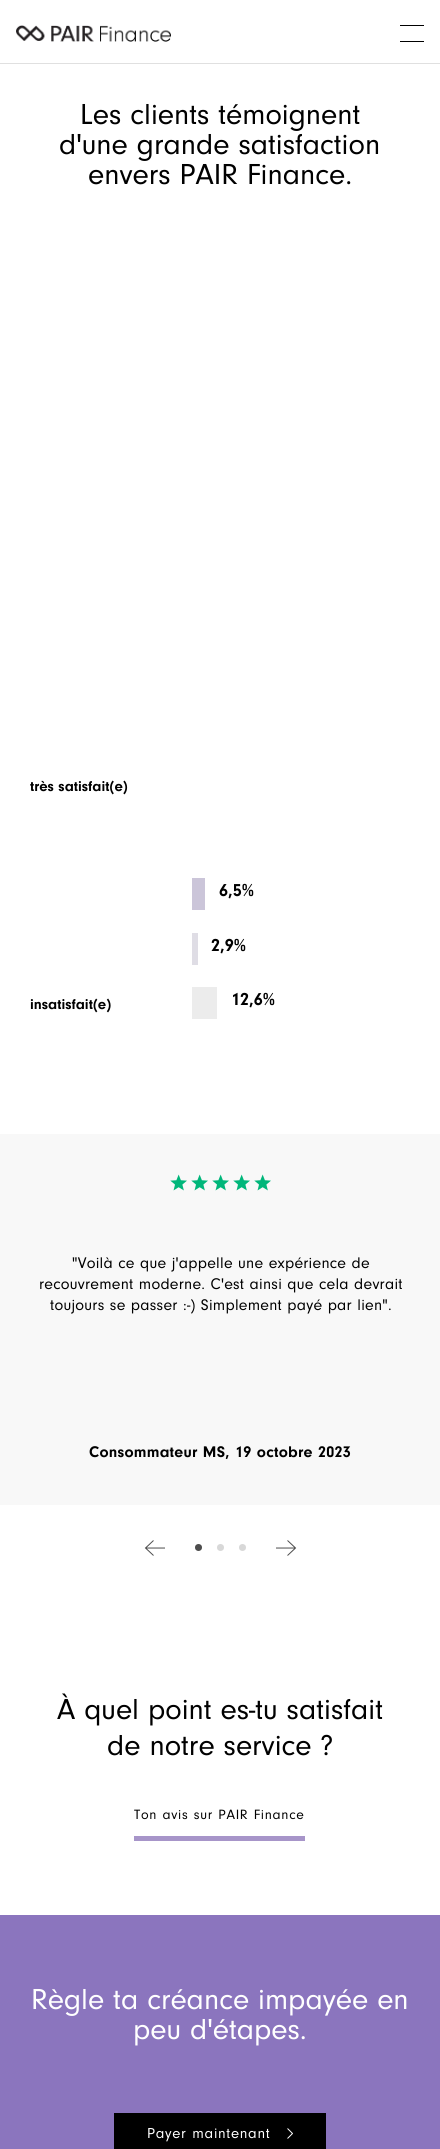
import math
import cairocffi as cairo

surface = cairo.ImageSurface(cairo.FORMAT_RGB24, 440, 2149)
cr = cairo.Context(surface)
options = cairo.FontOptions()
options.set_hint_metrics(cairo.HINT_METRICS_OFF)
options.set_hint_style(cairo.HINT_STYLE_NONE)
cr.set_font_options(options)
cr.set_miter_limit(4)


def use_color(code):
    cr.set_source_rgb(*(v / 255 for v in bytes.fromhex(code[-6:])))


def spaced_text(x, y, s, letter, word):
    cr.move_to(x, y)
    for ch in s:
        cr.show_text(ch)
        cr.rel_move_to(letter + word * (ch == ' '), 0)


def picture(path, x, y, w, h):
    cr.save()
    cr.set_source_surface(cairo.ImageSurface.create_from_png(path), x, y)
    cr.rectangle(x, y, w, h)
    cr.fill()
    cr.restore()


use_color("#ffffff")
cr.paint()
use_color("#e0e0e0")
cr.rectangle(0, 63, 440, 1)
cr.fill()
picture("img1.png", 16, 25, 155, 17)
use_color("#000000")
cr.rectangle(400, 25, 24, 1)
cr.fill()
cr.rectangle(400, 41, 24, 1)
cr.fill()
cr.select_font_face("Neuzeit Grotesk")
cr.set_font_size(30)
cr.move_to(80, 124)
cr.show_text("Les clients témoignent")
cr.move_to(59, 154)
cr.show_text("d'une grande satisfaction")
cr.move_to(88, 184)
cr.show_text("envers PAIR Finance.")
cr.select_font_face("Neuzeit Grotesk", cairo.FONT_SLANT_NORMAL, cairo.FONT_WEIGHT_BOLD)
cr.set_font_size(15)
cr.move_to(30, 791)
cr.show_text("très satisfait(e)")
cr.move_to(30, 1009)
cr.show_text("insatisfait(e)")
use_color("#cbc5d9")
cr.rectangle(192, 878, 13, 32)
cr.fill()
cr.set_font_size(18)
use_color("#000000")
cr.move_to(219, 896)
cr.show_text("6,5%")
use_color("#dfdde5")
cr.rectangle(192, 933, 6, 32)
cr.fill()
use_color("#000000")
cr.move_to(211, 951)
cr.show_text("2,9%")
use_color("#ececec")
cr.rectangle(192, 987, 25, 32)
cr.fill()
use_color("#000000")
cr.move_to(231, 1005)
cr.show_text("12,6%")
use_color("#f8f8f8")
cr.rectangle(0, 1134, 440, 371)
cr.fill()
picture("img2.png", 170, 1174, 17, 17)
picture("img2.png", 191, 1174, 17, 17)
picture("img2.png", 212, 1174, 17, 17)
picture("img2.png", 233, 1174, 17, 17)
picture("img2.png", 254, 1174, 17, 17)
cr.select_font_face("Neuzeit Grotesk")
cr.set_font_size(16)
use_color("#000000")
spaced_text(72, 1268, "\"Voilà ce que j'appelle une expérience de", 0.25, 0.25)
spaced_text(39, 1289, "recouvrement moderne. C'est ainsi que cela devrait", 0.25, 0.25)
spaced_text(50, 1310, "toujours se passer :-) Simplement payé par lien\".", 0.25, 0.25)
cr.select_font_face("Neuzeit Grotesk", cairo.FONT_SLANT_NORMAL, cairo.FONT_WEIGHT_BOLD)
spaced_text(89, 1457, "Consommateur MS, 19 octobre 2023", 0.25, 0.25)
cr.new_path()
cr.move_to(153.5, 1555.5)
cr.line_to(145.5, 1548)
cr.line_to(153.5, 1540.5)
cr.move_to(165, 1548)
cr.line_to(145.5, 1548)
use_color("#4d4d4d")
cr.set_line_width(1)
cr.stroke()
cr.arc(198.5, 1547.5, 3.5, 0, 2 * math.pi)
cr.fill()
use_color("#d8d8d8")
cr.arc(220.5, 1547.5, 3.5, 0, 2 * math.pi)
cr.fill()
cr.arc(242.5, 1547.5, 3.5, 0, 2 * math.pi)
cr.fill()
cr.new_path()
cr.move_to(287.5, 1540.5)
cr.line_to(295.5, 1548)
cr.line_to(287.5, 1555.5)
cr.move_to(276, 1548)
cr.line_to(295.5, 1548)
use_color("#4d4d4d")
cr.stroke()
cr.select_font_face("Neuzeit Grotesk")
cr.set_font_size(30)
use_color("#000000")
cr.move_to(57, 1719)
cr.show_text("À quel point es-tu satisfait")
cr.move_to(107, 1755)
cr.show_text("de notre service ?")
use_color("#a795c9")
cr.rectangle(134, 1836, 171, 5)
cr.fill()
cr.set_font_size(14)
use_color("#000000")
spaced_text(134, 1819, "Ton avis sur PAIR Finance", 0.7, 0.5)
use_color("#8b75be")
cr.rectangle(0, 1915, 440, 234)
cr.fill()
cr.set_font_size(30)
use_color("#ffffff")
cr.move_to(31, 2009)
cr.show_text("Règle ta créance impayée en")
cr.move_to(133, 2039)
cr.show_text("peu d'étapes.")
use_color("#000000")
cr.rectangle(114, 2113, 212, 36)
cr.fill()
cr.set_font_size(15)
use_color("#ffffff")
spaced_text(147, 2138, "Payer maintenant", 0.7, 0.5)
cr.new_path()
cr.move_to(287.5, 2128.5)
cr.line_to(292.5, 2133.5)
cr.line_to(287.5, 2138.5)
cr.set_line_join(cairo.LINE_JOIN_ROUND)
cr.stroke()
surface.write_to_png("result.png")
